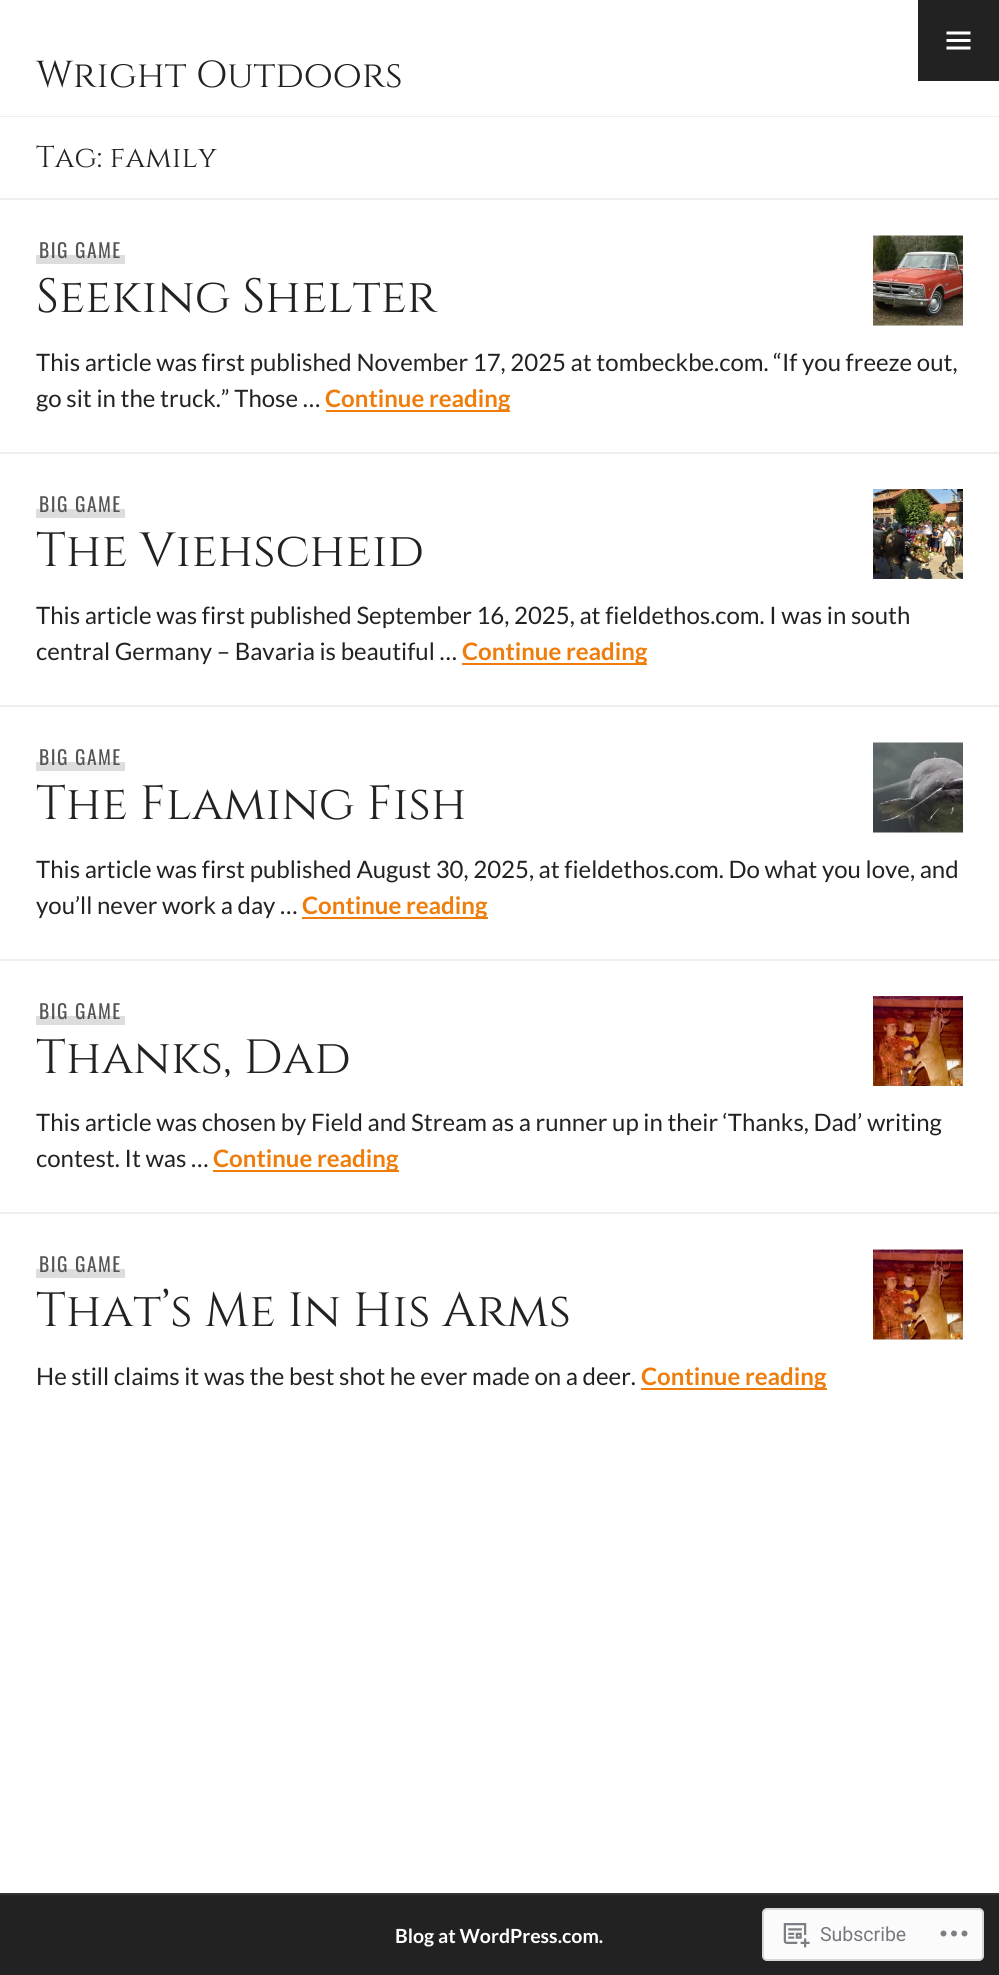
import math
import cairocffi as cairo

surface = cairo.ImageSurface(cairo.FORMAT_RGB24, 999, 1975)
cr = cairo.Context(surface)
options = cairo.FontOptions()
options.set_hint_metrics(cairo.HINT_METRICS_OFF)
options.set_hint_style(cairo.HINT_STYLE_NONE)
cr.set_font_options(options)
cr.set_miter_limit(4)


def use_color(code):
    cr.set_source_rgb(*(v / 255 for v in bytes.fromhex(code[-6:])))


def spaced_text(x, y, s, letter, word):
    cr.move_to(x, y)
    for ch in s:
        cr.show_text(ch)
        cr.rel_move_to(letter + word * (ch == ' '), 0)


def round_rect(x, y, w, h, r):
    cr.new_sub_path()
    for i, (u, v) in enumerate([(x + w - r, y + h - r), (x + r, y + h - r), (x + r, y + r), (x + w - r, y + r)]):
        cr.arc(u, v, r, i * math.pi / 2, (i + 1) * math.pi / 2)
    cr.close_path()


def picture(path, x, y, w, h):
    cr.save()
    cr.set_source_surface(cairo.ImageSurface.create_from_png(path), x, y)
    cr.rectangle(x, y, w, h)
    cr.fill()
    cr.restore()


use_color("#ffffff")
cr.paint()
use_color("#eeeeee")
cr.rectangle(0, 116, 999, 1)
cr.fill()
cr.select_font_face("Cinzel")
cr.set_font_size(37.5)
use_color("#222222")
cr.move_to(36, 87)
cr.show_text("Wright Outdoors")
cr.rectangle(918, 0, 81, 81)
cr.fill()
picture("img1.png", 946, 31, 25, 19)
use_color("#eeeeee")
cr.rectangle(0, 198, 999, 2)
cr.fill()
cr.set_font_size(30)
use_color("#222222")
cr.move_to(36, 167)
cr.show_text("Tag: family")
use_color("#eeeeee")
cr.rectangle(0, 452, 999, 2)
cr.fill()
use_color("#dddddd")
cr.rectangle(36, 255, 89, 9)
cr.fill()
cr.select_font_face("Oswald")
cr.set_font_size(19.5)
use_color("#555555")
spaced_text(39, 258, "BIG GAME", 1.5, 0)
cr.select_font_face("Cinzel")
cr.set_font_size(48)
use_color("#222222")
cr.move_to(36, 312)
cr.show_text("Seeking Shelter")
picture("img2.png", 873, 235, 90, 91)
cr.select_font_face("Lato")
cr.set_font_size(24)
cr.move_to(36, 371)
cr.show_text("This article was first published November 17, 2025 at tombeckbe.com. “If you freeze out,")
cr.move_to(36, 407)
cr.show_text("go sit in the truck.” Those …")
use_color("#ef7d0b")
cr.rectangle(326, 410, 184, 2)
cr.fill()
cr.select_font_face("Lato", cairo.FONT_SLANT_NORMAL, cairo.FONT_WEIGHT_BOLD)
cr.move_to(325, 407)
cr.show_text("Continue reading")
use_color("#eeeeee")
cr.rectangle(0, 705, 999, 2)
cr.fill()
use_color("#dddddd")
cr.rectangle(36, 509, 89, 9)
cr.fill()
cr.select_font_face("Oswald")
cr.set_font_size(19.5)
use_color("#555555")
spaced_text(39, 512, "BIG GAME", 1.5, 0)
cr.select_font_face("Cinzel")
cr.set_font_size(48)
use_color("#222222")
cr.move_to(36, 566)
cr.show_text("The Viehscheid")
picture("img3.png", 873, 489, 90, 90)
cr.select_font_face("Lato")
cr.set_font_size(24)
cr.move_to(36, 624)
cr.show_text("This article was first published September 16, 2025, at fieldethos.com. I was in south")
cr.move_to(36, 660)
cr.show_text("central Germany – Bavaria is beautiful …")
use_color("#ef7d0b")
cr.rectangle(462, 663, 185, 2)
cr.fill()
cr.select_font_face("Lato", cairo.FONT_SLANT_NORMAL, cairo.FONT_WEIGHT_BOLD)
cr.move_to(462, 660)
cr.show_text("Continue reading")
use_color("#eeeeee")
cr.rectangle(0, 959, 999, 2)
cr.fill()
use_color("#dddddd")
cr.rectangle(36, 762, 89, 9)
cr.fill()
cr.select_font_face("Oswald")
cr.set_font_size(19.5)
use_color("#555555")
spaced_text(39, 765, "BIG GAME", 1.5, 0)
cr.select_font_face("Cinzel")
cr.set_font_size(48)
use_color("#222222")
cr.move_to(36, 819)
cr.show_text("The Flaming Fish")
picture("img4.png", 873, 742, 90, 91)
cr.select_font_face("Lato")
cr.set_font_size(24)
cr.move_to(36, 878)
cr.show_text("This article was first published August 30, 2025, at fieldethos.com. Do what you love, and")
cr.move_to(36, 914)
cr.show_text("you’ll never work a day …")
use_color("#ef7d0b")
cr.rectangle(302, 917, 186, 2)
cr.fill()
cr.select_font_face("Lato", cairo.FONT_SLANT_NORMAL, cairo.FONT_WEIGHT_BOLD)
cr.move_to(302, 914)
cr.show_text("Continue reading")
use_color("#eeeeee")
cr.rectangle(0, 1212, 999, 2)
cr.fill()
use_color("#dddddd")
cr.rectangle(36, 1016, 89, 9)
cr.fill()
cr.select_font_face("Oswald")
cr.set_font_size(19.5)
use_color("#555555")
spaced_text(39, 1019, "BIG GAME", 1.5, 0)
cr.select_font_face("Cinzel")
cr.set_font_size(48)
use_color("#222222")
cr.move_to(36, 1073)
cr.show_text("Thanks, Dad")
picture("img5.png", 873, 996, 90, 90)
cr.select_font_face("Lato")
cr.set_font_size(24)
cr.move_to(36, 1131)
cr.show_text("This article was chosen by Field and Stream as a runner up in their ‘Thanks, Dad’ writing")
cr.move_to(36, 1167)
cr.show_text("contest. It was …")
use_color("#ef7d0b")
cr.rectangle(213, 1170, 186, 2)
cr.fill()
cr.select_font_face("Lato", cairo.FONT_SLANT_NORMAL, cairo.FONT_WEIGHT_BOLD)
cr.move_to(213, 1167)
cr.show_text("Continue reading")
use_color("#dddddd")
cr.rectangle(36, 1269, 89, 9)
cr.fill()
cr.select_font_face("Oswald")
cr.set_font_size(19.5)
use_color("#555555")
spaced_text(39, 1272, "BIG GAME", 1.5, 0)
cr.select_font_face("Cinzel")
cr.set_font_size(48)
use_color("#222222")
cr.move_to(36, 1326)
cr.show_text("That’s Me In His Arms")
picture("img6.png", 873, 1249, 90, 91)
cr.select_font_face("Lato")
cr.set_font_size(24)
cr.move_to(36, 1385)
cr.show_text("He still claims it was the best shot he ever made on a deer.")
use_color("#ef7d0b")
cr.rectangle(641, 1388, 186, 2)
cr.fill()
cr.select_font_face("Lato", cairo.FONT_SLANT_NORMAL, cairo.FONT_WEIGHT_BOLD)
cr.move_to(641, 1385)
cr.show_text("Continue reading")
use_color("#222222")
cr.rectangle(0, 1895, 999, 80)
cr.fill()
use_color("#333333")
cr.rectangle(0, 1893, 999, 2)
cr.fill()
cr.set_font_size(19.5)
use_color("#ffffff")
cr.move_to(395, 1943)
cr.show_text("Blog at WordPress.com.")
use_color("#fbfbfb")
round_rect(763, 1909, 220, 51, 4)
cr.fill_preserve()
use_color("#d8d8da")
cr.stroke()
picture("img7.png", 783, 1923, 27, 25)
cr.select_font_face("Roboto")
use_color("#767a80")
cr.move_to(820, 1941)
cr.show_text("Subscribe")
picture("img8.png", 940, 1930, 28, 7)
surface.write_to_png("result.png")
